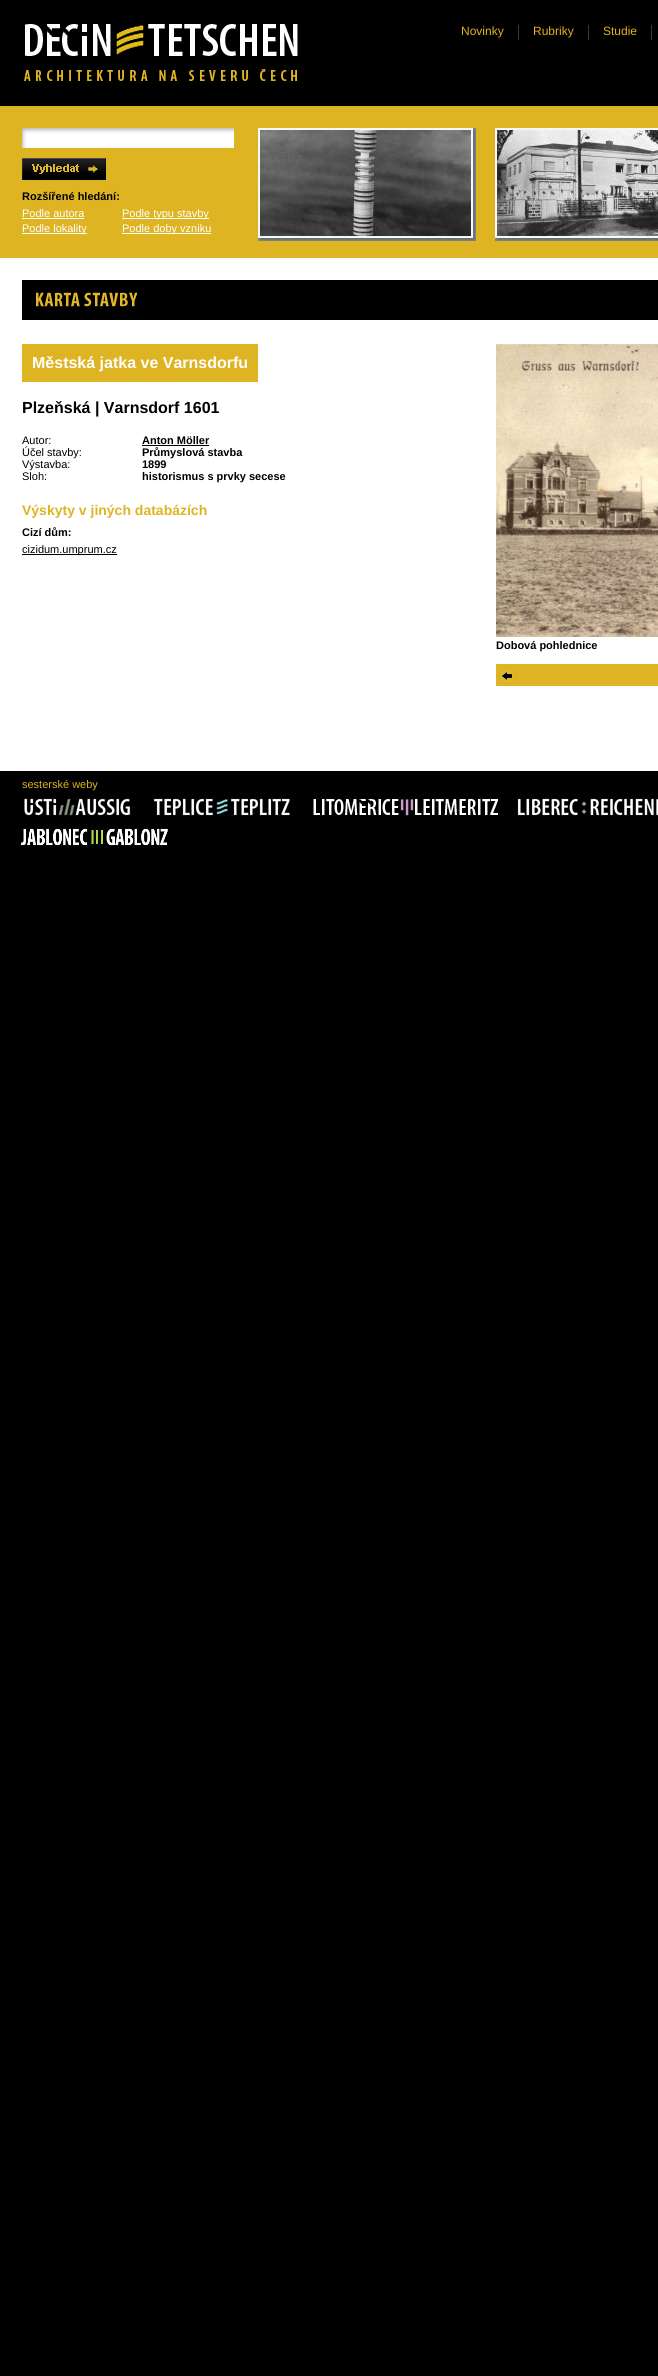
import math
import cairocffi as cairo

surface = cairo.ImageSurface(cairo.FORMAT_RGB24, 658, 2376)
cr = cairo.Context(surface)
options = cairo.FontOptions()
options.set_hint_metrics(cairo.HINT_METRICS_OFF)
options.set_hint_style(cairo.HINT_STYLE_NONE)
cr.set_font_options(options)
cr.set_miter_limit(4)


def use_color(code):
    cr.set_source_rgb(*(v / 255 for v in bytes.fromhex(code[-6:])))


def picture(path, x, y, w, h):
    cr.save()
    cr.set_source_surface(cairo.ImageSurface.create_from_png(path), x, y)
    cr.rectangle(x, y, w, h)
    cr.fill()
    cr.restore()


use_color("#000000")
cr.paint()
picture("img1.png", 24, 24, 274, 57)
cr.select_font_face("Liberation Sans")
cr.set_font_size(12)
use_color("#deb422")
cr.move_to(461, 35)
cr.show_text("Novinky")
use_color("#363c33")
cr.rectangle(518, 25, 1, 15)
cr.fill()
use_color("#deb422")
cr.move_to(533, 35)
cr.show_text("Rubriky")
use_color("#363c33")
cr.rectangle(588, 25, 1, 15)
cr.fill()
use_color("#deb422")
cr.move_to(603, 35)
cr.show_text("Studie")
use_color("#363c33")
cr.rectangle(651, 25, 1, 15)
cr.fill()
use_color("#deb422")
cr.rectangle(0, 106, 658, 152)
cr.fill()
picture("img2.png", 22, 128, 212, 20)
picture("img3.png", 22, 158, 84, 22)
cr.select_font_face("Liberation Sans", cairo.FONT_SLANT_NORMAL, cairo.FONT_WEIGHT_BOLD)
cr.set_font_size(11)
use_color("#000000")
cr.move_to(22, 200)
cr.show_text("Rozšířené hledání:")
cr.select_font_face("Liberation Sans")
use_color("#ffffff")
cr.move_to(22, 217)
cr.show_text("Podle autora")
cr.rectangle(22, 218, 62, 1)
cr.fill()
cr.rectangle(122, 218, 87, 1)
cr.fill()
cr.move_to(122, 217)
cr.show_text("Podle typu stavby")
cr.rectangle(22, 233, 65, 1)
cr.fill()
cr.move_to(22, 232)
cr.show_text("Podle lokality")
cr.rectangle(122, 233, 89, 1)
cr.fill()
cr.move_to(122, 232)
cr.show_text("Podle doby vzniku")
picture("img4.png", 258, 128, 218, 113)
picture("img5.png", 260, 130, 211, 106)
picture("img6.png", 495, 128, 163, 113)
picture("img7.png", 497, 130, 161, 106)
cr.rectangle(0, 258, 658, 513)
cr.fill()
use_color("#000000")
cr.rectangle(22, 280, 636, 40)
cr.fill()
picture("img8.png", 23, 283, 115, 24)
use_color("#deb422")
cr.rectangle(22, 344, 236, 38)
cr.fill()
cr.select_font_face("Liberation Sans", cairo.FONT_SLANT_NORMAL, cairo.FONT_WEIGHT_BOLD)
cr.set_font_size(16)
use_color("#ffffff")
cr.move_to(32, 368)
cr.show_text("Městská jatka ve Varnsdorfu")
use_color("#000000")
cr.move_to(22, 413)
cr.show_text("Plzeňská | Varnsdorf 1601")
cr.select_font_face("Liberation Sans")
cr.set_font_size(11)
cr.move_to(22, 444)
cr.show_text("Autor:")
cr.select_font_face("Liberation Sans", cairo.FONT_SLANT_NORMAL, cairo.FONT_WEIGHT_BOLD)
cr.move_to(142, 444)
cr.show_text("Anton Möller")
cr.rectangle(142, 445, 67, 1)
cr.fill()
cr.select_font_face("Liberation Sans")
cr.move_to(22, 456)
cr.show_text("Účel stavby:")
cr.select_font_face("Liberation Sans", cairo.FONT_SLANT_NORMAL, cairo.FONT_WEIGHT_BOLD)
cr.move_to(142, 456)
cr.show_text("Průmyslová stavba")
cr.select_font_face("Liberation Sans")
cr.move_to(22, 468)
cr.show_text("Výstavba:")
cr.select_font_face("Liberation Sans", cairo.FONT_SLANT_NORMAL, cairo.FONT_WEIGHT_BOLD)
cr.move_to(142, 468)
cr.show_text("1899")
cr.select_font_face("Liberation Sans")
cr.move_to(22, 480)
cr.show_text("Sloh:")
cr.select_font_face("Liberation Sans", cairo.FONT_SLANT_NORMAL, cairo.FONT_WEIGHT_BOLD)
cr.move_to(142, 480)
cr.show_text("historismus s prvky secese")
cr.set_font_size(14)
use_color("#deb422")
cr.move_to(22, 515)
cr.show_text("Výskyty v jiných databázích")
cr.set_font_size(11)
use_color("#000000")
cr.move_to(22, 536)
cr.show_text("Cizí dům:")
cr.rectangle(22, 554, 95, 1)
cr.fill()
cr.select_font_face("Liberation Sans")
cr.move_to(22, 553)
cr.show_text("cizidum.umprum.cz")
picture("img9.png", 496, 344, 162, 293)
cr.select_font_face("Liberation Sans", cairo.FONT_SLANT_NORMAL, cairo.FONT_WEIGHT_BOLD)
cr.move_to(496, 649)
cr.show_text("Dobová pohlednice")
use_color("#deb422")
cr.rectangle(496, 664, 162, 22)
cr.fill()
picture("img10.png", 501, 670, 12, 12)
cr.select_font_face("Liberation Sans")
cr.move_to(22, 788)
cr.show_text("sesterské weby")
picture("img11.png", 24, 798, 107, 18)
picture("img12.png", 153, 798, 137, 18)
picture("img13.png", 313, 799, 185, 17)
picture("img14.png", 517, 798, 141, 18)
picture("img15.png", 21, 828, 147, 18)
surface.write_to_png("result.png")
